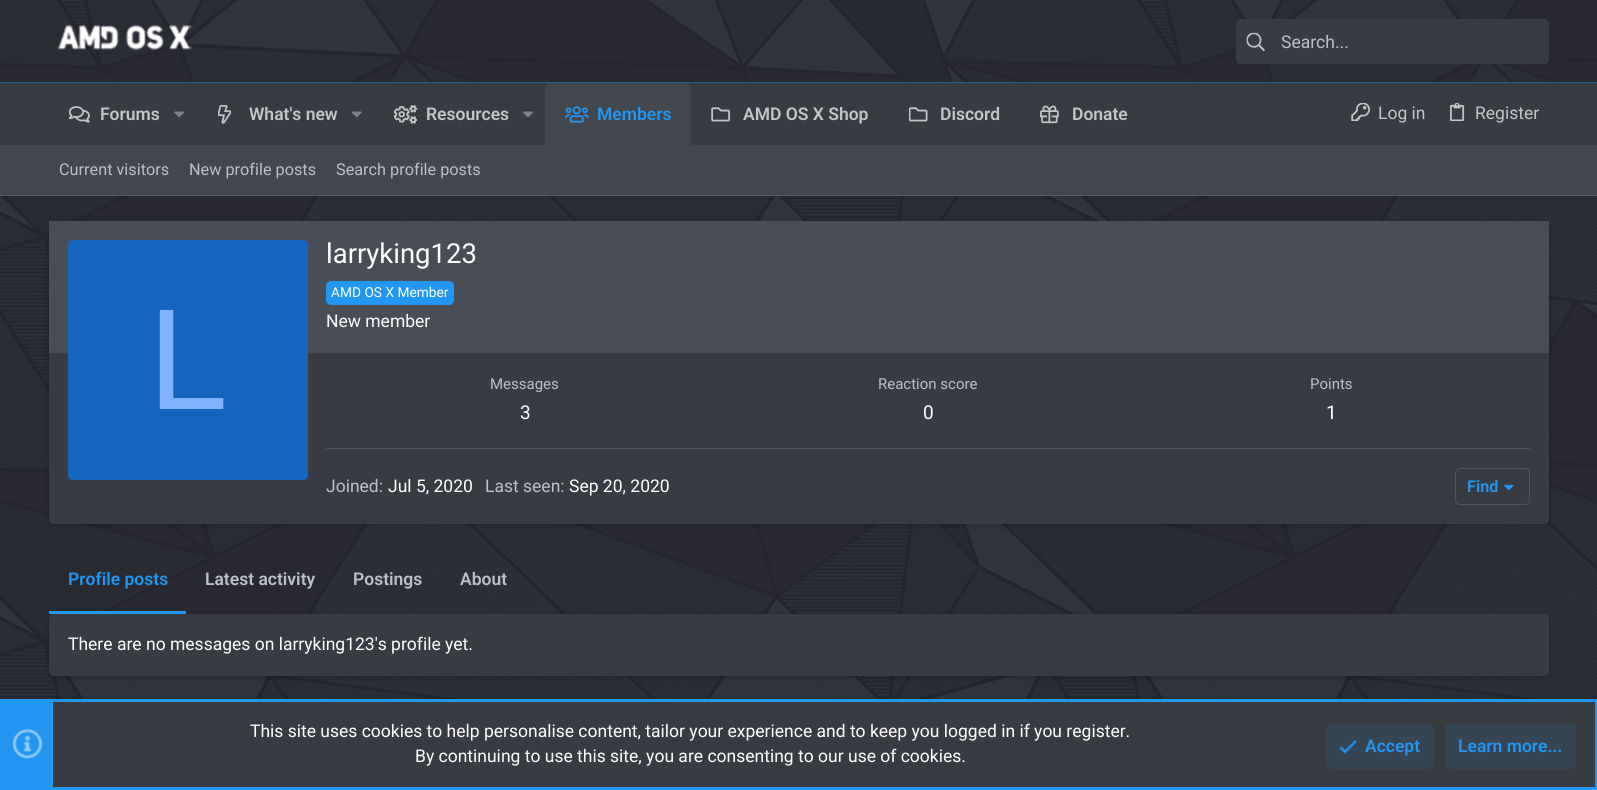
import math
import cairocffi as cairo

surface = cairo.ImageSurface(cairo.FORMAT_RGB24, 1597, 790)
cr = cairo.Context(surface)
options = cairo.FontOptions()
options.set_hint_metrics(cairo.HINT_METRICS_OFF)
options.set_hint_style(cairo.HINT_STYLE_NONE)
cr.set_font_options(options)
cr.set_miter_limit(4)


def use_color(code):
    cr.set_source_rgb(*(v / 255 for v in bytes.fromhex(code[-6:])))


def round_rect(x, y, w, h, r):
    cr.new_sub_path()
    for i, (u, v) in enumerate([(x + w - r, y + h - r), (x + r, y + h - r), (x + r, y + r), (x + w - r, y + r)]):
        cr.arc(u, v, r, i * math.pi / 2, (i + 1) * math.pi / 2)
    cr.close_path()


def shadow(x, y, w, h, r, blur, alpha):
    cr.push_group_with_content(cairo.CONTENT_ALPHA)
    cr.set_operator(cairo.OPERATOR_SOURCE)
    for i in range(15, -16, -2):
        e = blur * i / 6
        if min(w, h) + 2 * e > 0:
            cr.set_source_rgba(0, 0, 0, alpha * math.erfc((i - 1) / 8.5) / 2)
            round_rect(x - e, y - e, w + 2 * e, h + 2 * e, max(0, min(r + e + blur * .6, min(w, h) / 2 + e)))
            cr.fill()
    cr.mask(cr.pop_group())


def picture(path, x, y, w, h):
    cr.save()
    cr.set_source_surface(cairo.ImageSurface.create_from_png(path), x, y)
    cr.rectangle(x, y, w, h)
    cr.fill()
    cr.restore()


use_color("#ffffff")
cr.paint()
picture("img1.png", 0, 196, 1597, 503)
use_color("#2196f3")
cr.rectangle(0, 82, 1597, 1)
cr.fill()
picture("img2.png", 0, 0, 1597, 83)
picture("img3.png", 56, 25, 136, 25)
use_color("#383c42")
round_rect(1236, 19, 313, 45, 5)
cr.fill()
picture("img4.png", 1246, 32, 19, 19)
cr.select_font_face("Roboto")
cr.set_font_size(17.5)
use_color("#bcc0c7")
cr.move_to(1281, 48)
cr.show_text("Search...")
use_color("#383c42")
cr.rectangle(0, 83, 1597, 62)
cr.fill()
picture("img5.png", 69, 106, 21, 17)
cr.select_font_face("Roboto SemiBold")
use_color("#c3c5c6")
cr.move_to(100, 120)
cr.show_text("Forums")
picture("img6.png", 174, 111, 11, 7)
picture("img7.png", 218, 105, 13, 19)
cr.move_to(249, 120)
cr.show_text("What's new")
picture("img8.png", 351, 111, 11, 7)
picture("img9.png", 394, 105, 24, 19)
cr.move_to(426, 120)
cr.show_text("Resources")
picture("img10.png", 523, 111, 10, 7)
use_color("#42464d")
cr.new_path()
cr.move_to(550, 83)
cr.line_to(686, 83)
cr.curve_to(689, 83, 691, 85, 691, 88)
cr.line_to(691, 145)
cr.line_to(545, 145)
cr.line_to(545, 88)
cr.curve_to(545, 85, 547, 83, 550, 83)
cr.close_path()
cr.fill()
picture("img11.png", 565, 106, 24, 17)
use_color("#2196f3")
cr.move_to(597, 120)
cr.show_text("Members")
picture("img12.png", 711, 107, 19, 15)
use_color("#c3c5c6")
cr.move_to(743, 120)
cr.show_text("AMD OS X Shop")
picture("img13.png", 909, 107, 19, 15)
cr.move_to(940, 120)
cr.show_text("Discord")
picture("img14.png", 1040, 105, 19, 19)
cr.move_to(1072, 120)
cr.show_text("Donate")
picture("img15.png", 1351, 103, 19, 18)
cr.select_font_face("Roboto")
cr.move_to(1378, 119)
cr.show_text("Log in")
picture("img16.png", 1450, 103, 15, 18)
cr.move_to(1475, 119)
cr.show_text("Register")
use_color("#42464d")
cr.rectangle(0, 145, 1597, 50)
cr.fill()
use_color("#595c62")
cr.rectangle(0, 195, 1597, 1)
cr.fill()
cr.set_font_size(16.25)
use_color("#bcc0c7")
cr.move_to(59, 175)
cr.show_text("Current visitors")
cr.move_to(189, 175)
cr.show_text("New profile posts")
cr.move_to(336, 175)
cr.show_text("Search profile posts")
use_color("#000000")
shadow(49, 223, 1500, 302, 5, 3, 0.2)
use_color("#383c42")
round_rect(49, 221, 1500, 303, 5)
cr.fill()
use_color("#484d56")
cr.rectangle(49, 221, 1500, 132)
cr.fill()
cr.set_font_size(27.5)
use_color("#ffffff")
cr.move_to(326, 263)
cr.show_text("larryking123")
use_color("#2196f3")
round_rect(326.5, 281.5, 127, 23, 4.5)
cr.fill_preserve()
cr.set_line_width(1)
cr.stroke()
cr.set_font_size(13.75)
use_color("#ffffff")
cr.move_to(331, 297)
cr.show_text("AMD OS X Member")
cr.set_font_size(17.5)
cr.move_to(326, 327)
cr.show_text("New member")
use_color("#1565c0")
round_rect(68, 240, 240, 240, 5)
cr.fill()
cr.select_font_face("Liberation Sans")
cr.set_font_size(144)
use_color("#82b1ff")
cr.move_to(148, 409)
cr.show_text("L")
cr.select_font_face("Roboto")
cr.set_font_size(15)
use_color("#bcc0c7")
cr.move_to(490, 389)
cr.show_text("Messages")
cr.set_font_size(19)
use_color("#ffffff")
cr.move_to(520, 419)
cr.show_text("3")
cr.set_font_size(15)
use_color("#bcc0c7")
cr.move_to(878, 389)
cr.show_text("Reaction score")
cr.set_font_size(19)
use_color("#ffffff")
cr.move_to(923, 419)
cr.show_text("0")
cr.set_font_size(15)
use_color("#bcc0c7")
cr.move_to(1310, 389)
cr.show_text("Points")
cr.set_font_size(19)
use_color("#ffffff")
cr.move_to(1326, 419)
cr.show_text("1")
use_color("#505359")
cr.rectangle(326, 448, 1204, 1)
cr.fill()
cr.set_font_size(17.5)
use_color("#bcc0c7")
cr.move_to(326, 492)
cr.show_text("Joined:")
use_color("#ffffff")
cr.move_to(388, 492)
cr.show_text("Jul 5, 2020")
use_color("#bcc0c7")
cr.move_to(485, 492)
cr.show_text("Last seen:")
use_color("#ffffff")
cr.move_to(569, 492)
cr.show_text("Sep 20, 2020")
round_rect(1455.5, 468.5, 74, 36, 4.5)
use_color("#505359")
cr.stroke()
cr.select_font_face("Roboto SemiBold")
cr.set_font_size(16.25)
use_color("#2196f3")
cr.move_to(1467, 492)
cr.show_text("Find")
picture("img17.png", 1504, 484, 10, 7)
use_color("#000000")
shadow(49, 615, 1500, 63, 5, 3, 0.2)
use_color("#2196f3")
cr.rectangle(49, 611, 137, 3)
cr.fill()
cr.set_font_size(17.5)
cr.move_to(68, 585)
cr.show_text("Profile posts")
use_color("#bcc0c7")
cr.move_to(205, 585)
cr.show_text("Latest activity")
cr.move_to(353, 585)
cr.show_text("Postings")
cr.move_to(460, 585)
cr.show_text("About")
use_color("#383c42")
round_rect(49, 614, 1500, 62, 5)
cr.fill()
cr.select_font_face("Roboto")
use_color("#ffffff")
cr.move_to(68, 650)
cr.show_text("There are no messages on larryking123's profile yet.")
use_color("#383c42")
cr.rectangle(53, 702, 1542, 85)
cr.fill()
cr.rectangle(1.5, 700.5, 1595, 88)
use_color("#2196f3")
cr.set_line_width(3)
cr.stroke()
cr.rectangle(3, 702, 50, 85)
cr.fill()
picture("img18.png", 12, 728, 31, 31)
use_color("#ffffff")
cr.move_to(250, 737)
cr.show_text("This site uses cookies to help personalise content, tailor your experience and to keep you logged in if you register.")
cr.move_to(415, 762)
cr.show_text("By continuing to use this site, you are consenting to our use of cookies.")
use_color("#364554")
round_rect(1326, 724, 108, 45, 5)
cr.fill()
picture("img19.png", 1339, 740, 18, 14)
cr.select_font_face("Roboto SemiBold")
use_color("#2196f3")
cr.move_to(1365, 752)
cr.show_text("Accept")
use_color("#364554")
round_rect(1445, 724, 131, 45, 5)
cr.fill()
use_color("#2196f3")
cr.move_to(1458, 752)
cr.show_text("Learn more...")
surface.write_to_png("result.png")
